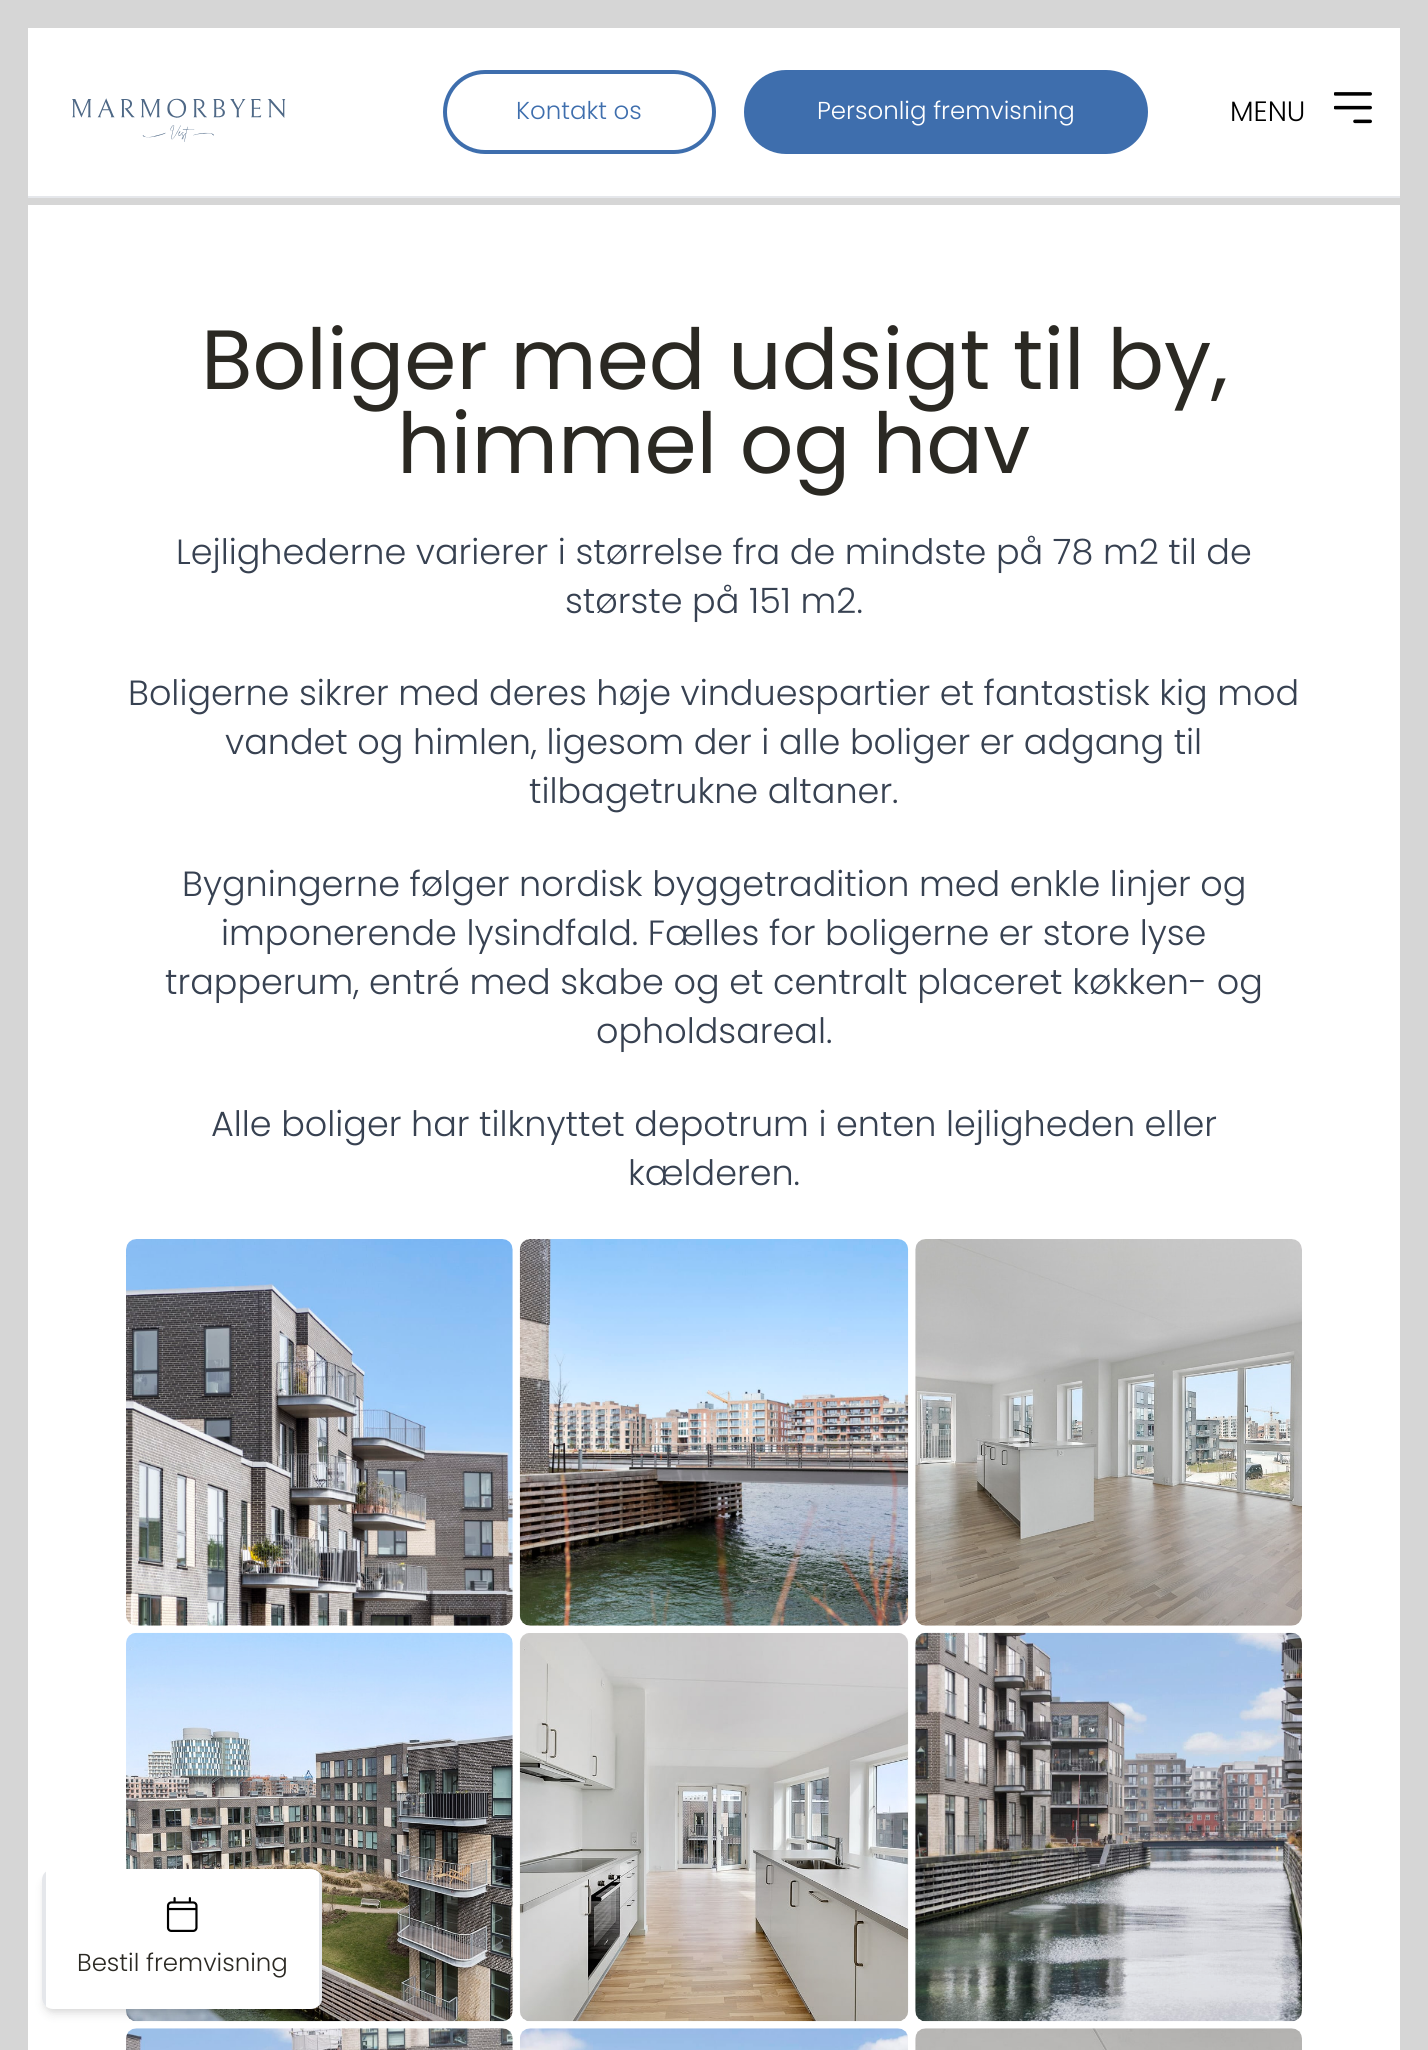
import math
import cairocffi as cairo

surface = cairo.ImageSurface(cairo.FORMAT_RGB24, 1428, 2050)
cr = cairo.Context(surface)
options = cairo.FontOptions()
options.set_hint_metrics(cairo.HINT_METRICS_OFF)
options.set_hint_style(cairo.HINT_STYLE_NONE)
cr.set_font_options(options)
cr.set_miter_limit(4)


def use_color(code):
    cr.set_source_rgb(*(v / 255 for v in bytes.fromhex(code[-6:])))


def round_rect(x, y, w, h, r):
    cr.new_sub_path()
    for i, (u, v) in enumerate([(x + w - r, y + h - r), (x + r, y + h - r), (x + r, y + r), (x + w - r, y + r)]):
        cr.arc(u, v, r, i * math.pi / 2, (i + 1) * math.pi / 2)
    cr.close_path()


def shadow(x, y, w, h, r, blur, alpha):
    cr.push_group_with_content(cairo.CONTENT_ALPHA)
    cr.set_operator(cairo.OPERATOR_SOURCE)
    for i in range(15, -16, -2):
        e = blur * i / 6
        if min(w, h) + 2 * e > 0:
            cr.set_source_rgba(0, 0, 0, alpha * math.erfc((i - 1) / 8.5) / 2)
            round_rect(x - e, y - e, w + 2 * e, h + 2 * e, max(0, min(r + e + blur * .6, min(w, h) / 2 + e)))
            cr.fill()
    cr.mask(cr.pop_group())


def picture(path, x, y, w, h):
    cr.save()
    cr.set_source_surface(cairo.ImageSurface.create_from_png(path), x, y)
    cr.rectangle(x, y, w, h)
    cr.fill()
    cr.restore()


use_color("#d6d6d6")
cr.paint()
use_color("#ffffff")
cr.rectangle(28, 205, 1372, 1845)
cr.fill()
cr.rectangle(28, 28, 1372, 168)
cr.fill()
use_color("#e5e7eb")
cr.rectangle(28, 196, 1372, 2)
cr.fill()
picture("img1.png", 72, 98, 214, 44)
round_rect(445, 72, 269, 80, 40)
use_color("#3e6ead")
cr.set_line_width(4)
cr.stroke()
cr.select_font_face("Poppins Light")
cr.set_font_size(24.5)
cr.move_to(516, 119)
cr.show_text("Kontakt os")
round_rect(744, 70, 404, 84, 42)
cr.fill()
use_color("#ffffff")
cr.move_to(817, 119)
cr.show_text("Personlig fremvisning")
cr.set_font_size(28)
use_color("#000000")
cr.move_to(1230, 121)
cr.show_text("MENU")
picture("img2.png", 1334, 92, 38, 32)
cr.select_font_face("Poppins")
cr.set_font_size(84)
use_color("#2b2923")
cr.move_to(201, 389)
cr.show_text("Boliger med udsigt til by,")
cr.move_to(397, 473)
cr.show_text("himmel og hav")
cr.select_font_face("Poppins Light")
cr.set_font_size(35)
use_color("#374151")
cr.move_to(176, 564)
cr.show_text("Lejlighederne varierer i størrelse fra de mindste på 78 m2 til de")
cr.move_to(565, 613)
cr.show_text("største på 151 m2.")
cr.move_to(128, 705)
cr.show_text("Boligerne sikrer med deres høje vinduespartier et fantastisk kig mod")
cr.move_to(225, 754)
cr.show_text("vandet og himlen, ligesom der i alle boliger er adgang til")
cr.move_to(529, 803)
cr.show_text("tilbagetrukne altaner.")
cr.move_to(182, 896)
cr.show_text("Bygningerne følger nordisk byggetradition med enkle linjer og")
cr.move_to(221, 945)
cr.show_text("imponerende lysindfald. Fælles for boligerne er store lyse")
cr.move_to(165, 994)
cr.show_text("trapperum, entré med skabe og et centralt placeret køkken- og")
cr.move_to(596, 1043)
cr.show_text("opholdsareal.")
cr.move_to(211, 1136)
cr.show_text("Alle boliger har tilknyttet depotrum i enten lejligheden eller")
cr.move_to(628, 1185)
cr.show_text("kælderen.")
picture("img3.png", 126, 1239, 387, 387)
picture("img4.png", 519, 1239, 390, 387)
picture("img5.png", 915, 1239, 387, 387)
picture("img6.png", 126, 1632, 387, 390)
picture("img7.png", 519, 1633, 390, 389)
picture("img8.png", 915, 1632, 387, 390)
picture("img9.png", 126, 2028, 387, 22)
picture("img10.png", 520, 2028, 388, 22)
picture("img11.png", 915, 2028, 387, 22)
use_color("#000000")
shadow(46, 1876, 273, 133, 7, 3.5, 0.1)
shadow(44, 1878, 276, 136, 9, 5, 0.1)
use_color("#ffffff")
round_rect(42, 1869, 280, 140, 11)
cr.fill()
cr.save()
round_rect(42, 1869, 280, 140, 11)
cr.clip()
use_color("#e5e7eb")
cr.rectangle(319, 1869, 3, 140)
cr.fill()
cr.rectangle(42, 1869, 4, 140)
cr.fill()
cr.restore()
picture("img12.png", 166, 1897, 32, 35)
cr.set_font_size(24.5)
use_color("#2b2923")
cr.move_to(77, 1971)
cr.show_text("Bestil fremvisning")
surface.write_to_png("result.png")
